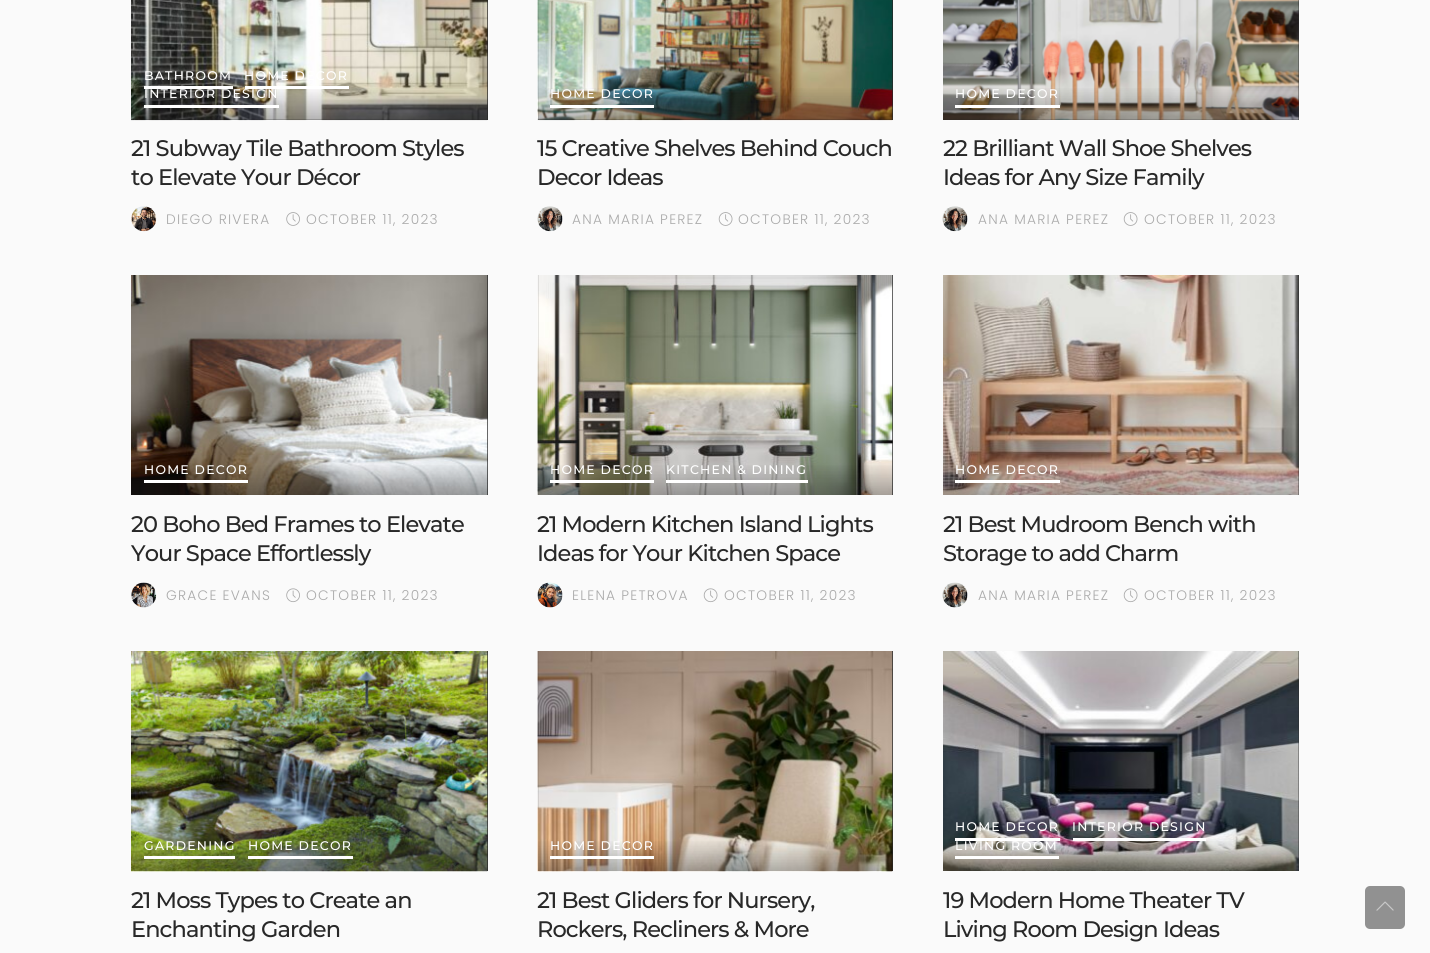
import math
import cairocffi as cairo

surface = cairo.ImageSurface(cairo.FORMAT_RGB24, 1430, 953)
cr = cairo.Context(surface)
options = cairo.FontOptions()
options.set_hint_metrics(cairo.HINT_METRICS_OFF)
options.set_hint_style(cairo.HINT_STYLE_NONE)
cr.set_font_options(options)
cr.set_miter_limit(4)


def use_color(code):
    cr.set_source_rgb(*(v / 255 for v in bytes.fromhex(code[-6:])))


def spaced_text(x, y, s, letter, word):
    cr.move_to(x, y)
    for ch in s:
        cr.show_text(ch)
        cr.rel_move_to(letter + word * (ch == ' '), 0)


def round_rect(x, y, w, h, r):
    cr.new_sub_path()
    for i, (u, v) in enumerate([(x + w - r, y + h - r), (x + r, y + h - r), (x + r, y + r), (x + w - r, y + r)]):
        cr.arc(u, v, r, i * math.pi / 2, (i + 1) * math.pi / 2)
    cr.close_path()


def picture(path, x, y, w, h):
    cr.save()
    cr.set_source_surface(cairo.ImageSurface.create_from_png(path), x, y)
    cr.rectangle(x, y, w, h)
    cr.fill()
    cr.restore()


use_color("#fafafa")
cr.paint()
use_color("#282828")
cr.rectangle(131, 0, 357, 120)
cr.fill()
picture("img1.png", 131, 0, 357, 121)
gradient = cairo.LinearGradient(309, 86, 309, 121)
gradient.add_color_stop_rgba(0, 0.133, 0.133, 0.133, 0)
gradient.add_color_stop_rgba(0.3, 0.133, 0.133, 0.133, 0.1)
gradient.add_color_stop_rgba(1, 0.133, 0.133, 0.133, 0.35)
cr.set_source(gradient)
cr.rectangle(131, 88, 357, 32)
cr.fill()
use_color("#ffffff")
cr.rectangle(144, 86, 89, 3)
cr.fill()
cr.select_font_face("Montserrat Medium")
cr.set_font_size(12.5)
spaced_text(144, 80, "BATHROOM", 1.25, 0)
cr.rectangle(245, 86, 104, 3)
cr.fill()
spaced_text(244, 80, "HOME DECOR", 1.25, 0)
cr.rectangle(144, 105, 135, 3)
cr.fill()
spaced_text(144, 98, "INTERIOR DESIGN", 1.25, 0)
cr.set_font_size(22.5)
use_color("#282828")
spaced_text(131, 156, "21 Subway Tile Bathroom Styles", -0.9, 0)
spaced_text(131, 185, "to Elevate Your Décor", -0.9, 0)
picture("img2.png", 131, 206, 26, 26)
cr.select_font_face("Poppins Light")
cr.set_font_size(13.75)
use_color("#aaaaaa")
spaced_text(166, 224, "DIEGO RIVERA", 1.25, 0)
picture("img3.png", 286, 212, 14, 14)
spaced_text(306, 224, "OCTOBER 11, 2023", 1.25, 0)
use_color("#282828")
cr.rectangle(538, 0, 355, 120)
cr.fill()
picture("img4.png", 537, 0, 356, 121)
gradient = cairo.LinearGradient(715, 86, 715, 121)
gradient.add_color_stop_rgba(0, 0.133, 0.133, 0.133, 0)
gradient.add_color_stop_rgba(0.3, 0.133, 0.133, 0.133, 0.1)
gradient.add_color_stop_rgba(1, 0.133, 0.133, 0.133, 0.35)
cr.set_source(gradient)
cr.rectangle(538, 88, 355, 32)
cr.fill()
use_color("#ffffff")
cr.rectangle(550, 105, 104, 3)
cr.fill()
cr.select_font_face("Montserrat Medium")
cr.set_font_size(12.5)
spaced_text(550, 98, "HOME DECOR", 1.25, 0)
cr.set_font_size(22.5)
use_color("#282828")
spaced_text(537, 156, "15 Creative Shelves Behind Couch", -0.9, 0)
spaced_text(537, 185, "Decor Ideas", -0.9, 0)
picture("img5.png", 537, 206, 26, 26)
cr.select_font_face("Poppins Light")
cr.set_font_size(13.75)
use_color("#aaaaaa")
spaced_text(572, 224, "ANA MARIA PEREZ", 1.25, 0)
picture("img6.png", 718, 212, 15, 14)
spaced_text(738, 224, "OCTOBER 11, 2023", 1.25, 0)
use_color("#282828")
cr.rectangle(943, 0, 356, 120)
cr.fill()
picture("img7.png", 943, 0, 356, 120)
gradient = cairo.LinearGradient(1121, 86, 1121, 121)
gradient.add_color_stop_rgba(0, 0.133, 0.133, 0.133, 0)
gradient.add_color_stop_rgba(0.3, 0.133, 0.133, 0.133, 0.1)
gradient.add_color_stop_rgba(1, 0.133, 0.133, 0.133, 0.35)
cr.set_source(gradient)
cr.rectangle(943, 88, 356, 32)
cr.fill()
use_color("#ffffff")
cr.rectangle(955, 105, 105, 3)
cr.fill()
cr.select_font_face("Montserrat Medium")
cr.set_font_size(12.5)
spaced_text(955, 98, "HOME DECOR", 1.25, 0)
cr.set_font_size(22.5)
use_color("#282828")
spaced_text(943, 156, "22 Brilliant Wall Shoe Shelves", -0.9, 0)
spaced_text(943, 185, "Ideas for Any Size Family", -0.9, 0)
picture("img5.png", 942, 206, 26, 26)
cr.select_font_face("Poppins Light")
cr.set_font_size(13.75)
use_color("#aaaaaa")
spaced_text(978, 224, "ANA MARIA PEREZ", 1.25, 0)
picture("img6.png", 1123, 212, 15, 14)
spaced_text(1144, 224, "OCTOBER 11, 2023", 1.25, 0)
use_color("#282828")
cr.rectangle(487, 275, 1, 220)
cr.fill()
picture("img8.png", 131, 275, 357, 220)
gradient = cairo.LinearGradient(309, 463, 309, 496)
gradient.add_color_stop_rgba(0, 0.133, 0.133, 0.133, 0)
gradient.add_color_stop_rgba(0.3, 0.133, 0.133, 0.133, 0.1)
gradient.add_color_stop_rgba(1, 0.133, 0.133, 0.133, 0.35)
cr.set_source(gradient)
cr.rectangle(131, 465, 357, 30)
cr.fill()
use_color("#ffffff")
cr.rectangle(144, 480, 104, 3)
cr.fill()
cr.select_font_face("Montserrat Medium")
cr.set_font_size(12.5)
spaced_text(144, 474, "HOME DECOR", 1.25, 0)
cr.set_font_size(22.5)
use_color("#282828")
spaced_text(131, 532, "20 Boho Bed Frames to Elevate", -0.9, 0)
spaced_text(131, 561, "Your Space Effortlessly", -0.9, 0)
picture("img9.png", 131, 582, 26, 26)
cr.select_font_face("Poppins Light")
cr.set_font_size(13.75)
use_color("#aaaaaa")
spaced_text(166, 600, "GRACE EVANS", 1.25, 0)
picture("img10.png", 286, 588, 14, 15)
spaced_text(306, 600, "OCTOBER 11, 2023", 1.25, 0)
use_color("#282828")
cr.rectangle(538, 275, 355, 220)
cr.fill()
picture("img11.png", 537, 275, 356, 220)
gradient = cairo.LinearGradient(715, 463, 715, 496)
gradient.add_color_stop_rgba(0, 0.133, 0.133, 0.133, 0)
gradient.add_color_stop_rgba(0.3, 0.133, 0.133, 0.133, 0.1)
gradient.add_color_stop_rgba(1, 0.133, 0.133, 0.133, 0.35)
cr.set_source(gradient)
cr.rectangle(538, 465, 355, 30)
cr.fill()
use_color("#ffffff")
cr.rectangle(550, 480, 104, 3)
cr.fill()
cr.select_font_face("Montserrat Medium")
cr.set_font_size(12.5)
spaced_text(550, 474, "HOME DECOR", 1.25, 0)
cr.rectangle(666, 480, 142, 3)
cr.fill()
spaced_text(666, 474, "KITCHEN & DINING", 1.25, 0)
cr.set_font_size(22.5)
use_color("#282828")
spaced_text(537, 532, "21 Modern Kitchen Island Lights", -0.9, 0)
spaced_text(537, 561, "Ideas for Your Kitchen Space", -0.9, 0)
picture("img12.png", 537, 582, 26, 26)
cr.select_font_face("Poppins Light")
cr.set_font_size(13.75)
use_color("#aaaaaa")
spaced_text(572, 600, "ELENA PETROVA", 1.25, 0)
picture("img13.png", 703, 588, 15, 15)
spaced_text(724, 600, "OCTOBER 11, 2023", 1.25, 0)
use_color("#282828")
cr.rectangle(1298, 275, 1, 220)
cr.fill()
picture("img14.png", 943, 275, 356, 220)
gradient = cairo.LinearGradient(1121, 463, 1121, 496)
gradient.add_color_stop_rgba(0, 0.133, 0.133, 0.133, 0)
gradient.add_color_stop_rgba(0.3, 0.133, 0.133, 0.133, 0.1)
gradient.add_color_stop_rgba(1, 0.133, 0.133, 0.133, 0.35)
cr.set_source(gradient)
cr.rectangle(943, 465, 356, 30)
cr.fill()
use_color("#ffffff")
cr.rectangle(955, 480, 105, 3)
cr.fill()
cr.select_font_face("Montserrat Medium")
cr.set_font_size(12.5)
spaced_text(955, 474, "HOME DECOR", 1.25, 0)
cr.set_font_size(22.5)
use_color("#282828")
spaced_text(943, 532, "21 Best Mudroom Bench with", -0.9, 0)
spaced_text(943, 561, "Storage to add Charm", -0.9, 0)
picture("img15.png", 942, 582, 26, 26)
cr.select_font_face("Poppins Light")
cr.set_font_size(13.75)
use_color("#aaaaaa")
spaced_text(978, 600, "ANA MARIA PEREZ", 1.25, 0)
picture("img13.png", 1123, 588, 15, 15)
spaced_text(1144, 600, "OCTOBER 11, 2023", 1.25, 0)
use_color("#282828")
cr.rectangle(487, 651, 1, 220)
cr.fill()
picture("img16.png", 131, 651, 357, 221)
gradient = cairo.LinearGradient(309, 839, 309, 873)
gradient.add_color_stop_rgba(0, 0.133, 0.133, 0.133, 0)
gradient.add_color_stop_rgba(0.3, 0.133, 0.133, 0.133, 0.1)
gradient.add_color_stop_rgba(1, 0.133, 0.133, 0.133, 0.35)
cr.set_source(gradient)
cr.rectangle(131, 841, 357, 30)
cr.fill()
use_color("#ffffff")
cr.rectangle(144, 856, 91, 3)
cr.fill()
cr.select_font_face("Montserrat Medium")
cr.set_font_size(12.5)
spaced_text(144, 850, "GARDENING", 1.25, 0)
cr.rectangle(248, 856, 105, 3)
cr.fill()
spaced_text(248, 850, "HOME DECOR", 1.25, 0)
cr.set_font_size(22.5)
use_color("#282828")
spaced_text(131, 908, "21 Moss Types to Create an", -0.9, 0)
spaced_text(131, 937, "Enchanting Garden", -0.9, 0)
cr.rectangle(538, 651, 355, 220)
cr.fill()
picture("img17.png", 537, 651, 356, 221)
gradient = cairo.LinearGradient(715, 839, 715, 873)
gradient.add_color_stop_rgba(0, 0.133, 0.133, 0.133, 0)
gradient.add_color_stop_rgba(0.3, 0.133, 0.133, 0.133, 0.1)
gradient.add_color_stop_rgba(1, 0.133, 0.133, 0.133, 0.35)
cr.set_source(gradient)
cr.rectangle(538, 841, 354, 30)
cr.fill()
use_color("#ffffff")
cr.rectangle(550, 856, 104, 3)
cr.fill()
cr.set_font_size(12.5)
spaced_text(550, 850, "HOME DECOR", 1.25, 0)
cr.set_font_size(22.5)
use_color("#282828")
spaced_text(537, 908, "21 Best Gliders for Nursery,", -0.9, 0)
spaced_text(537, 937, "Rockers, Recliners & More", -0.9, 0)
cr.rectangle(1298, 651, 1, 220)
cr.fill()
picture("img18.png", 943, 651, 356, 220)
use_color("#ffffff")
cr.rectangle(955, 838, 105, 3)
cr.fill()
cr.set_font_size(12.5)
spaced_text(955, 831, "HOME DECOR", 1.25, 0)
cr.rectangle(1073, 838, 133, 3)
cr.fill()
spaced_text(1072, 831, "INTERIOR DESIGN", 1.25, 0)
gradient = cairo.LinearGradient(1121, 839, 1121, 873)
gradient.add_color_stop_rgba(0, 0.133, 0.133, 0.133, 0)
gradient.add_color_stop_rgba(0.3, 0.133, 0.133, 0.133, 0.1)
gradient.add_color_stop_rgba(1, 0.133, 0.133, 0.133, 0.35)
cr.set_source(gradient)
cr.rectangle(943, 841, 356, 30)
cr.fill()
use_color("#ffffff")
cr.rectangle(955, 856, 104, 3)
cr.fill()
spaced_text(955, 850, "LIVING ROOM", 1.25, 0)
cr.set_font_size(22.5)
use_color("#282828")
spaced_text(943, 908, "19 Modern Home Theater TV", -0.9, 0)
spaced_text(943, 937, "Living Room Design Ideas", -0.9, 0)
use_color("#919191")
round_rect(1365, 886, 40, 43, 5)
cr.fill()
picture("img19.png", 1376, 901, 18, 10)
surface.write_to_png("result.png")
